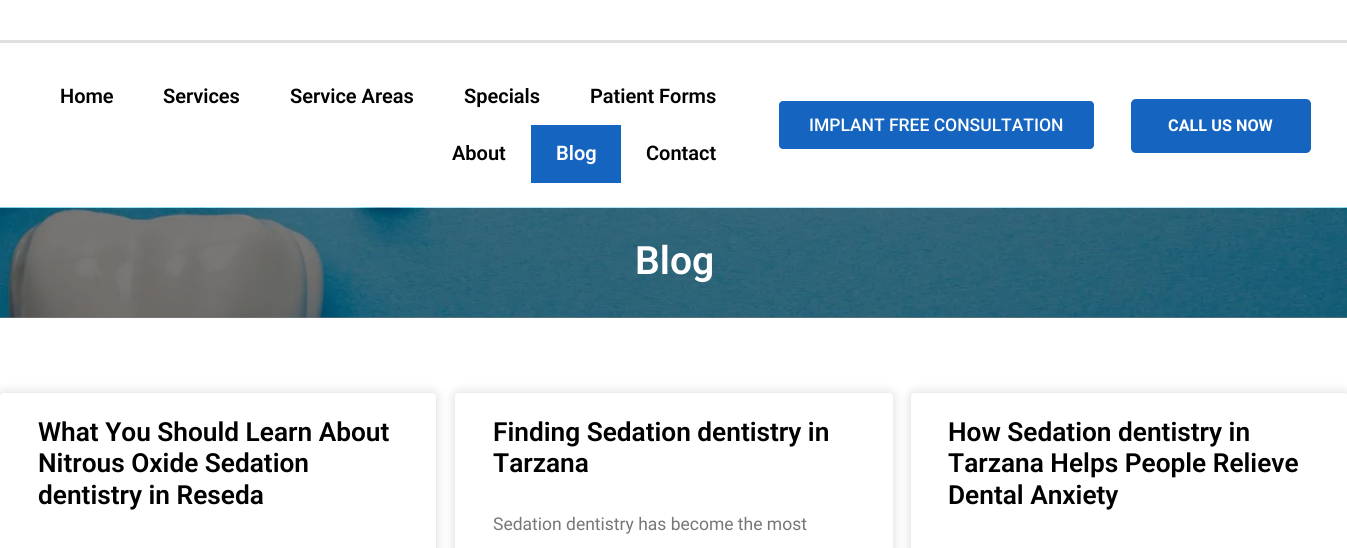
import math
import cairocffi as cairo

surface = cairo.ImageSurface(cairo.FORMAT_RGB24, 1347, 548)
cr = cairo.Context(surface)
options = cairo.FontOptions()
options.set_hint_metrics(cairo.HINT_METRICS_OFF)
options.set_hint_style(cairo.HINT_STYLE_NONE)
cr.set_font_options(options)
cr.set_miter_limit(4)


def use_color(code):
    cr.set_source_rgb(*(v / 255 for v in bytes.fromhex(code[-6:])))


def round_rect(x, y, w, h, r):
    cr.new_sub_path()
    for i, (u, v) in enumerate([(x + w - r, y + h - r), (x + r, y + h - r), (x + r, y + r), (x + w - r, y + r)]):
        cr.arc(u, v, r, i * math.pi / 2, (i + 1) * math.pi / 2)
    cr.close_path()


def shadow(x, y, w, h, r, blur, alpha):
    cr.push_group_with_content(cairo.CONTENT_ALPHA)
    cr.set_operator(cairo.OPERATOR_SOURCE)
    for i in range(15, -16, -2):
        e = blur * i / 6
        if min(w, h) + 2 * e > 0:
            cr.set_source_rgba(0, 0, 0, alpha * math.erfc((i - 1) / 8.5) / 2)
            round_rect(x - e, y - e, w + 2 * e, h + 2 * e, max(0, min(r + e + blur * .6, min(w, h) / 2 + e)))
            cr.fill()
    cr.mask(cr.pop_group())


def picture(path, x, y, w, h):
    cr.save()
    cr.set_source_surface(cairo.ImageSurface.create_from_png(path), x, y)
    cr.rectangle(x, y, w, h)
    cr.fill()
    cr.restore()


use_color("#ffffff")
cr.paint()
use_color("#808080")
cr.rectangle(0, 317, 1347, 1)
cr.fill()
use_color("#e0e0e0")
cr.rectangle(0, 40, 1347, 3)
cr.fill()
cr.select_font_face("Roboto SemiBold")
cr.set_font_size(20)
use_color("#000000")
cr.move_to(60, 103)
cr.show_text("Home")
cr.move_to(163, 103)
cr.show_text("Services")
cr.move_to(290, 103)
cr.show_text("Service Areas")
cr.move_to(464, 103)
cr.show_text("Specials")
cr.move_to(590, 103)
cr.show_text("Patient Forms")
cr.move_to(452, 160)
cr.show_text("About")
use_color("#1565c0")
cr.rectangle(531, 125, 90, 58)
cr.fill()
use_color("#ffffff")
cr.move_to(556, 160)
cr.show_text("Blog")
use_color("#000000")
cr.move_to(646, 160)
cr.show_text("Contact")
use_color("#1565c0")
round_rect(779, 101, 315, 48, 4)
cr.fill()
cr.select_font_face("Roboto Medium")
cr.set_font_size(17.5)
use_color("#ffffff")
cr.move_to(809, 131)
cr.show_text("IMPLANT FREE CONSULTATION")
use_color("#1565c0")
round_rect(1131, 99, 180, 54, 5)
cr.fill()
cr.select_font_face("Roboto", cairo.FONT_SLANT_NORMAL, cairo.FONT_WEIGHT_BOLD)
cr.set_font_size(16.25)
use_color("#ffffff")
cr.move_to(1168, 131)
cr.show_text("CALL US NOW")
picture("img1.png", 0, 207, 1347, 111)
cr.select_font_face("Roboto SemiBold")
cr.set_font_size(39)
cr.move_to(635, 274)
cr.show_text("Blog")
cr.save()
cr.set_fill_rule(cairo.FILL_RULE_EVEN_ODD)
cr.new_path()
cr.move_to(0, 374)
cr.line_to(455, 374)
cr.line_to(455, 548)
cr.line_to(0, 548)
cr.close_path()
cr.move_to(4, 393)
cr.line_to(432, 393)
cr.curve_to(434, 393, 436, 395, 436, 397)
cr.line_to(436, 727)
cr.curve_to(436, 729, 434, 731, 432, 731)
cr.line_to(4, 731)
cr.curve_to(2, 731, 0, 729, 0, 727)
cr.line_to(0, 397)
cr.curve_to(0, 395, 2, 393, 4, 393)
cr.close_path()
cr.clip()
use_color("#000000")
shadow(0, 393, 436, 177, 4, 6, 0.15)
cr.restore()
cr.set_font_size(26.25)
use_color("#000000")
cr.move_to(38, 441)
cr.show_text("What You Should Learn About")
cr.move_to(38, 472)
cr.show_text("Nitrous Oxide Sedation")
cr.move_to(38, 504)
cr.show_text("dentistry in Reseda")
use_color("#000000")
shadow(455, 393, 438, 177, 4, 6, 0.15)
use_color("#ffffff")
round_rect(455, 393, 438, 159, 4)
cr.fill()
use_color("#000000")
cr.move_to(493, 441)
cr.show_text("Finding Sedation dentistry in")
cr.move_to(493, 472)
cr.show_text("Tarzana")
cr.select_font_face("Roboto")
cr.set_font_size(17.5)
use_color("#777777")
cr.move_to(493, 530)
cr.show_text("Sedation dentistry has become the most")
use_color("#000000")
shadow(911, 393, 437, 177, 4, 6, 0.15)
use_color("#ffffff")
round_rect(911, 393, 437, 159, 4)
cr.fill()
cr.select_font_face("Roboto SemiBold")
cr.set_font_size(26.25)
use_color("#000000")
cr.move_to(948, 441)
cr.show_text("How Sedation dentistry in")
cr.move_to(948, 472)
cr.show_text("Tarzana Helps People Relieve")
cr.move_to(948, 504)
cr.show_text("Dental Anxiety")
surface.write_to_png("result.png")
